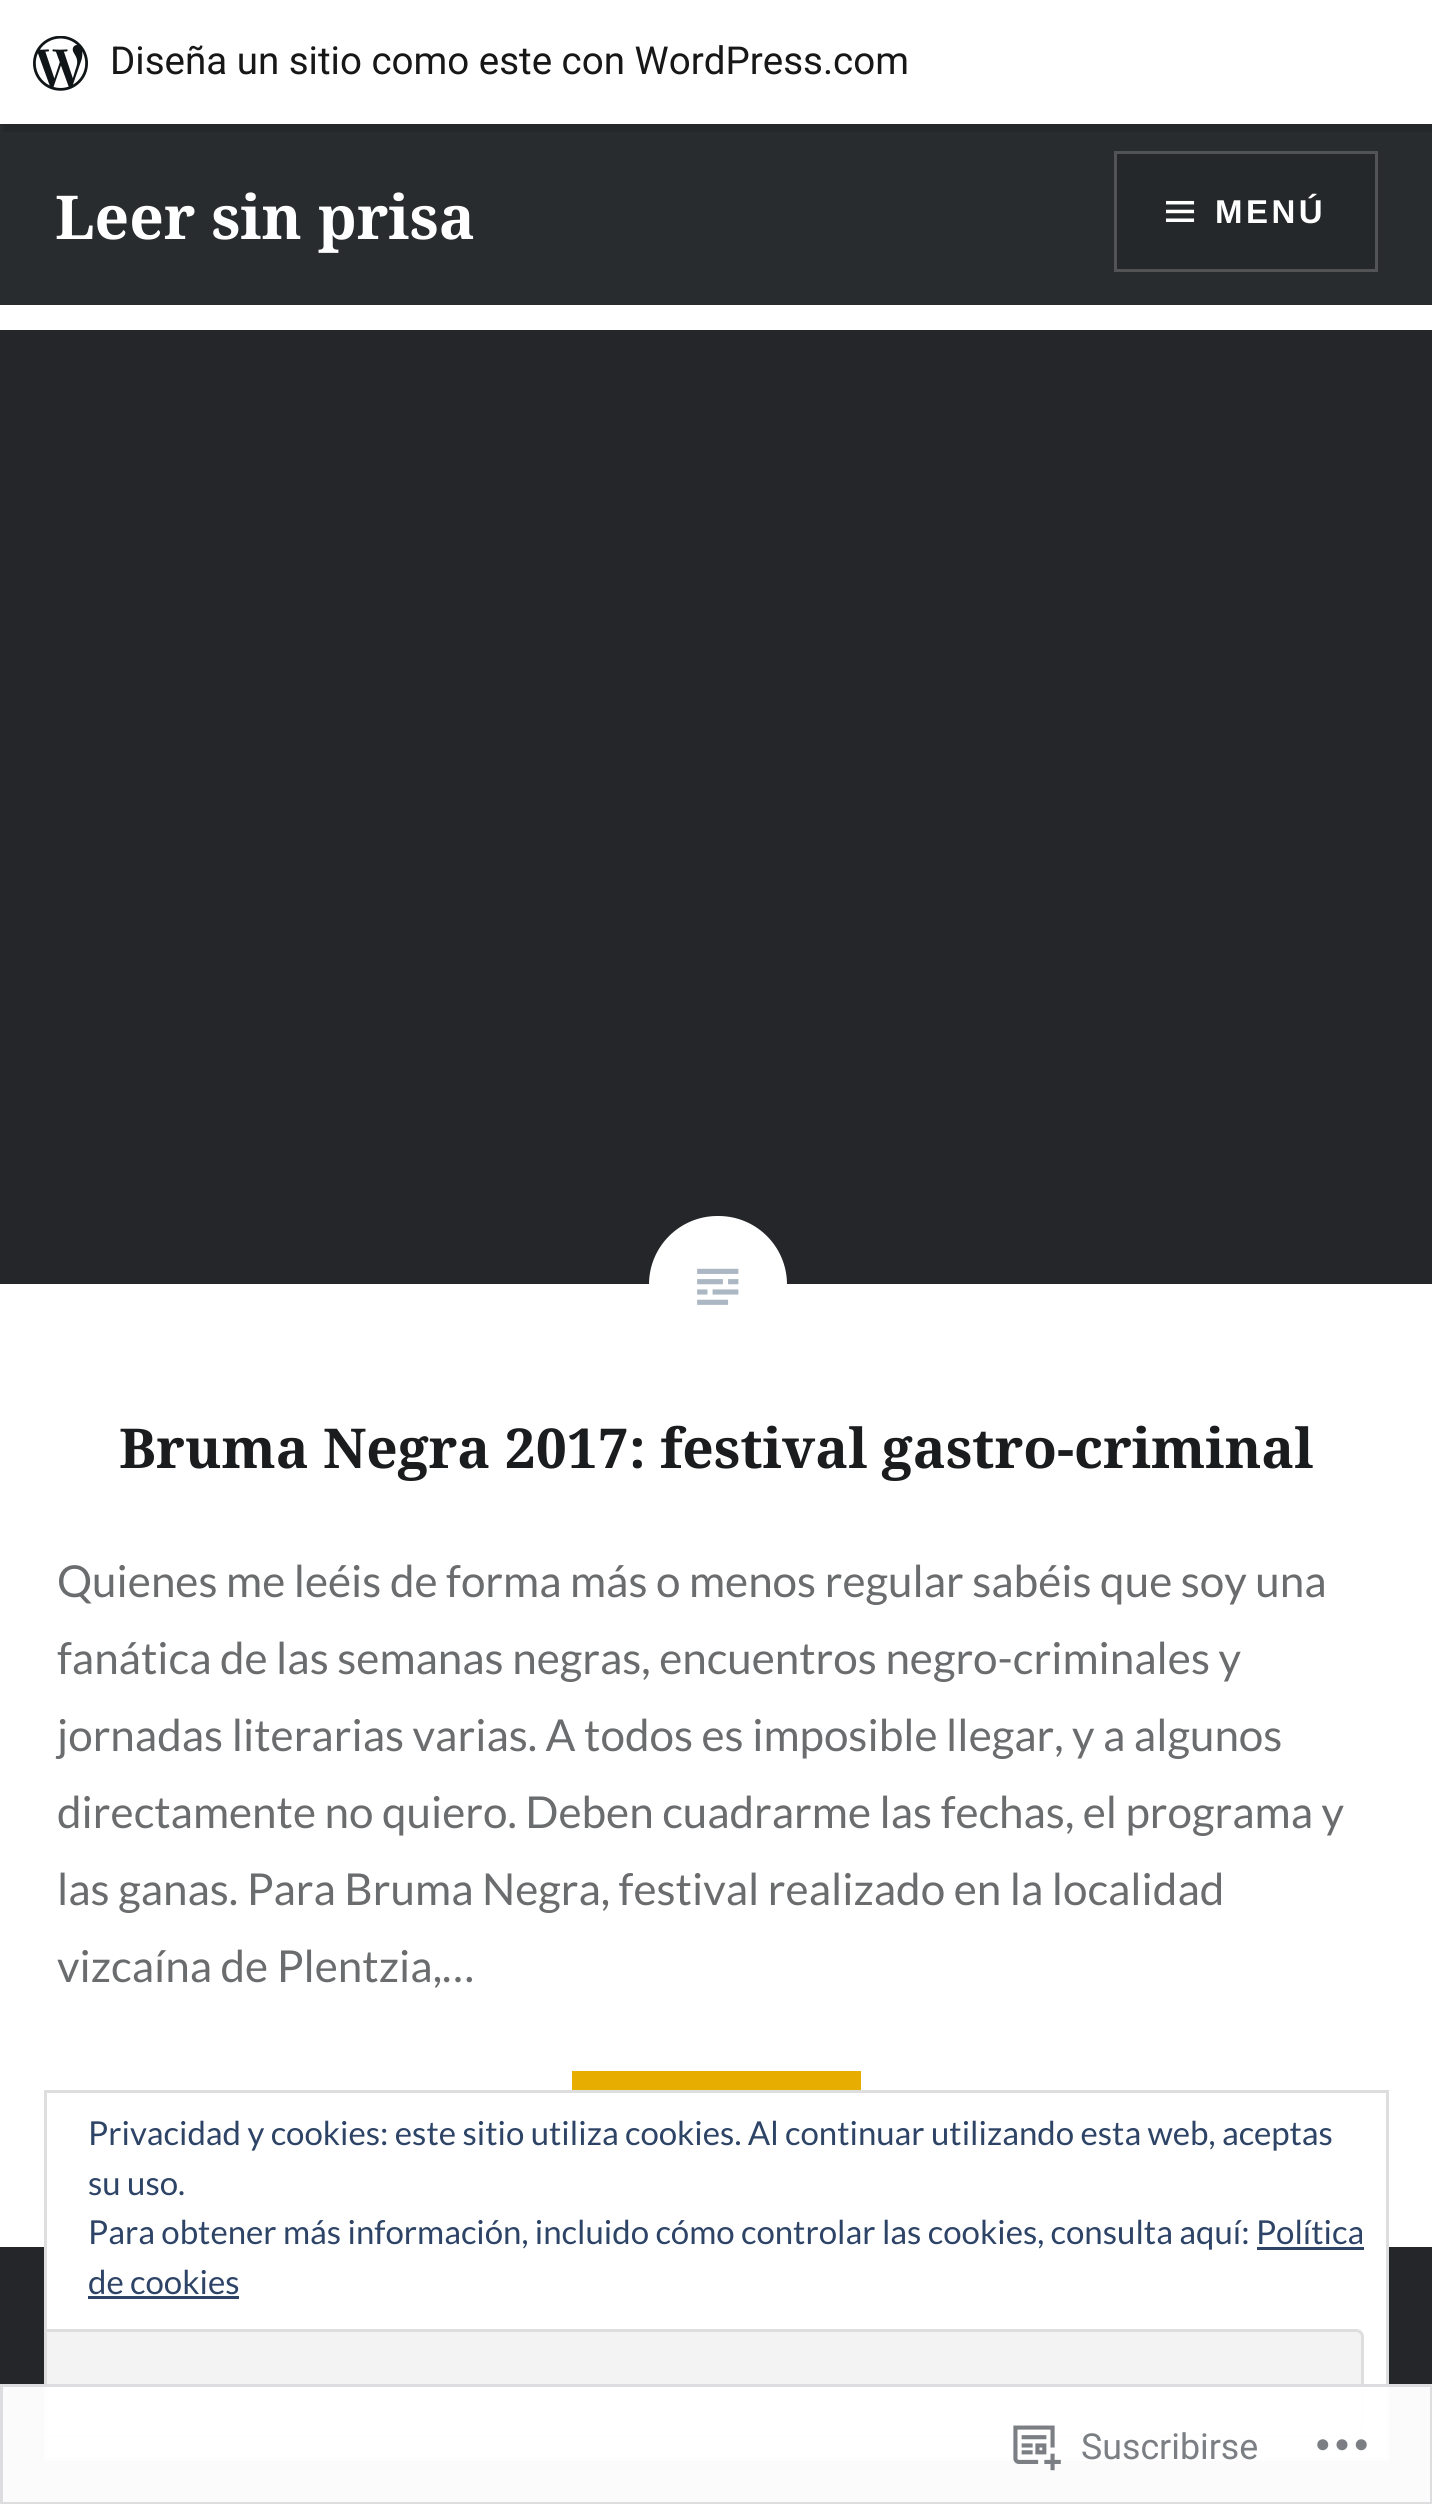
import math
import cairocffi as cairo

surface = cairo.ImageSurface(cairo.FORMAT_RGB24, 1432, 2504)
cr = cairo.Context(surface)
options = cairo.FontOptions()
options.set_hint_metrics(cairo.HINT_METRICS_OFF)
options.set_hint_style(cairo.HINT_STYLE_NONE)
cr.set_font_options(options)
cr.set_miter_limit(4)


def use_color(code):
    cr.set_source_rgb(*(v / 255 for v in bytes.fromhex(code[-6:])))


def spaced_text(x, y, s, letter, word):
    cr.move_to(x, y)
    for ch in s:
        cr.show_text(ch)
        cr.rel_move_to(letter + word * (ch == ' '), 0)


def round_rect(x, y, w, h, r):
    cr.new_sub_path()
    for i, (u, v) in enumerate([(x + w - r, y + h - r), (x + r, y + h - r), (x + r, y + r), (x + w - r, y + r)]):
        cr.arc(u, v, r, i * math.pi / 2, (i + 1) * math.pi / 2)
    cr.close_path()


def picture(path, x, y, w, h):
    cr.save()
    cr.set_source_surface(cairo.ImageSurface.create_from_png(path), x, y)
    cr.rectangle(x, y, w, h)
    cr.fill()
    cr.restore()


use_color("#242629")
cr.paint()
use_color("#292c2f")
cr.rectangle(0, 124, 1432, 181)
cr.fill()
use_color("#25282a")
cr.new_path()
cr.move_to(3, 124)
cr.line_to(3, 132)
cr.line_to(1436, 132)
cr.line_to(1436, 8)
cr.line_to(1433, 8)
cr.line_to(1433, 124)
cr.close_path()
cr.fill()
use_color("#ffffff")
cr.rectangle(0, 0, 1432, 124)
cr.fill()
picture("img1.png", 33, 36, 55, 55)
cr.select_font_face("Roboto")
cr.set_font_size(38.5)
use_color("#171717")
cr.move_to(110, 74)
cr.show_text("Diseña un sitio como este con WordPress.com")
use_color("#ffffff")
cr.rectangle(0, 305, 1432, 1942)
cr.fill()
cr.select_font_face("Noto Serif", cairo.FONT_SLANT_NORMAL, cairo.FONT_WEIGHT_BOLD)
cr.set_font_size(60.5)
cr.move_to(55, 239)
cr.show_text("Leer sin prisa")
use_color("#25282a")
cr.rectangle(1115.5, 152.5, 261, 118)
cr.fill_preserve()
use_color("#515355")
cr.set_line_width(3)
cr.stroke()
picture("img2.png", 1166, 200, 29, 22)
cr.select_font_face("Liberation Sans", cairo.FONT_SLANT_NORMAL, cairo.FONT_WEIGHT_BOLD)
cr.set_font_size(33)
use_color("#ffffff")
spaced_text(1215, 223, "MENÚ", 3.5, 0)
use_color("#242629")
cr.rectangle(0, 330, 1432, 954)
cr.fill()
use_color("#ffffff")
round_rect(649, 1216, 138, 137, 68.5)
cr.fill()
picture("img3.png", 697, 1268, 42, 37)
cr.select_font_face("Noto Serif", cairo.FONT_SLANT_NORMAL, cairo.FONT_WEIGHT_BOLD)
cr.set_font_size(55)
use_color("#1a1c1e")
cr.move_to(119, 1468)
cr.show_text("Bruma Negra 2017: festival gastro-criminal")
cr.select_font_face("Lato")
cr.set_font_size(44)
use_color("#6a6c6e")
cr.move_to(57, 1597)
cr.show_text("Quienes me leéis de forma más o menos regular sabéis que soy una")
cr.move_to(57, 1674)
cr.show_text("fanática de las semanas negras, encuentros negro-criminales y")
cr.move_to(57, 1751)
cr.show_text("jornadas literarias varias. A todos es imposible llegar, y a algunos")
cr.move_to(57, 1828)
cr.show_text("directamente no quiero. Deben cuadrarme las fechas, el programa y")
cr.move_to(57, 1905)
cr.show_text("las ganas. Para Bruma Negra, festival realizado en la localidad")
cr.move_to(57, 1982)
cr.show_text("vizcaína de Plentzia,…")
use_color("#e7ae01")
cr.rectangle(572, 2071, 289, 19)
cr.fill()
use_color("#ffffff")
cr.rectangle(47, 2247, 1339, 211)
cr.fill()
cr.rectangle(45.5, 2091.5, 1342, 368)
use_color("#dedede")
cr.stroke()
cr.set_font_size(33)
use_color("#2e4467")
cr.move_to(88, 2145)
cr.show_text("Privacidad y cookies: este sitio utiliza cookies. Al continuar utilizando esta web, aceptas")
cr.move_to(88, 2195)
cr.show_text("su uso.")
cr.move_to(88, 2244)
cr.show_text("Para obtener más información, incluido cómo controlar las cookies, consulta aquí: Política")
cr.move_to(88, 2294)
cr.show_text("de cookies")
cr.rectangle(1257, 2247, 107, 3)
cr.fill()
cr.rectangle(88, 2296, 151, 3)
cr.fill()
use_color("#f3f3f3")
cr.new_path()
cr.move_to(47, 2329)
cr.line_to(1356, 2329)
cr.curve_to(1360.5, 2329, 1364, 2332.5, 1364, 2337)
cr.line_to(1364, 2429)
cr.curve_to(1364, 2433.5, 1360.5, 2437, 1356, 2437)
cr.line_to(47, 2437)
cr.close_path()
cr.fill()
cr.save()
cr.rectangle(47, 2093, 1339, 366)
cr.clip()
round_rect(26.5, 2330.5, 1336, 105, 6.5)
use_color("#dedede")
cr.stroke()
cr.restore()
cr.set_source_rgba(1, 1, 1, 0.98)
cr.rectangle(0, 2384, 1432, 120)
cr.fill()
cr.rectangle(1.5, 2385.5, 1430, 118)
cr.set_source_rgba(0.863, 0.863, 0.871, 0.98)
cr.stroke()
picture("img4.png", 1013, 2425, 48, 46)
cr.select_font_face("Roboto")
cr.set_font_size(35.75)
use_color("#7b7f84")
cr.move_to(1081, 2459)
cr.show_text("Suscribirse")
picture("img5.png", 1317, 2439, 50, 12)
surface.write_to_png("result.png")
